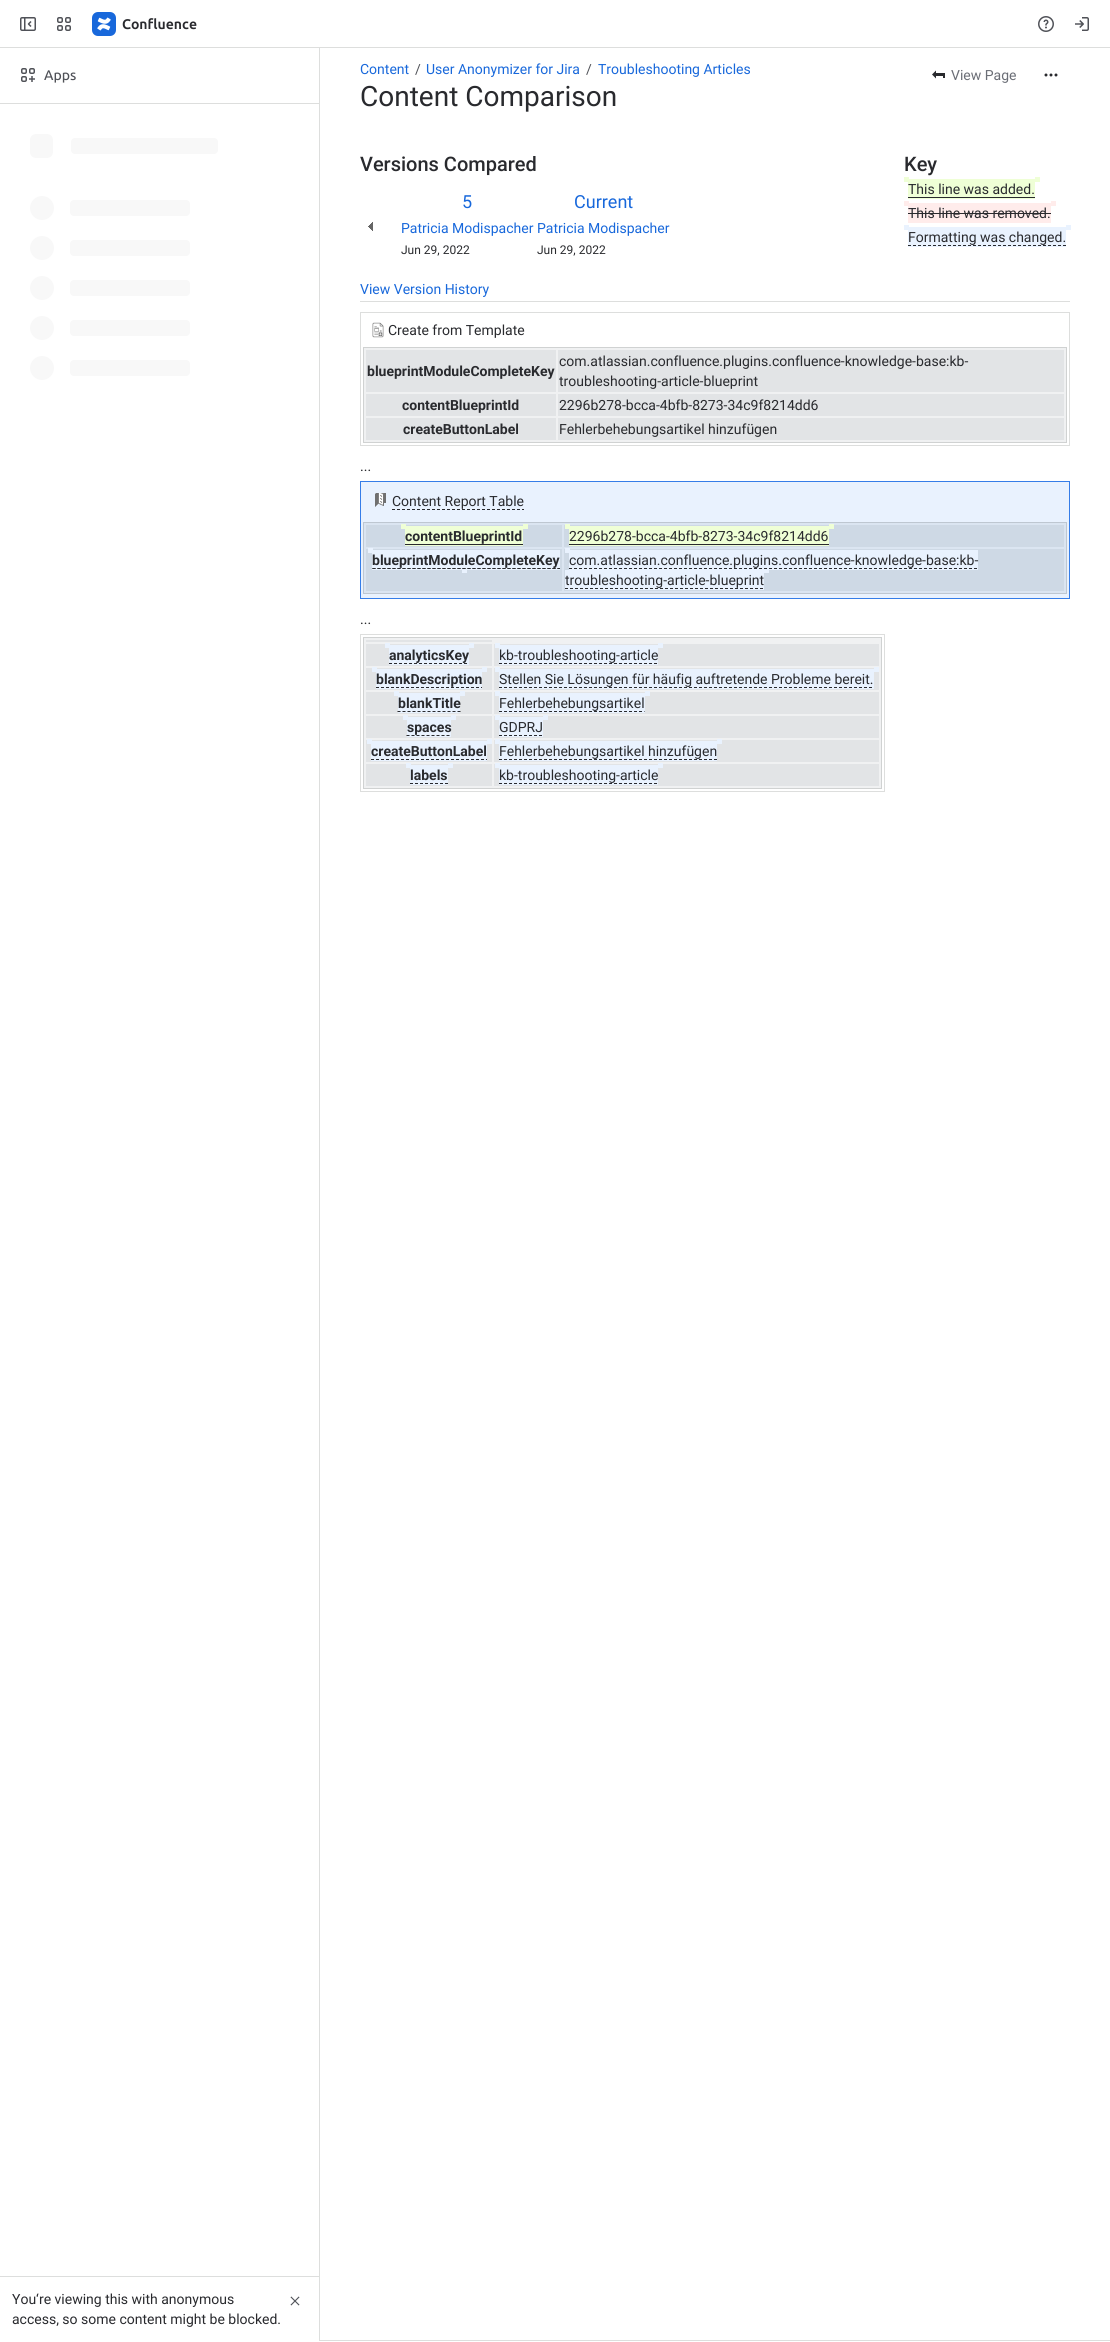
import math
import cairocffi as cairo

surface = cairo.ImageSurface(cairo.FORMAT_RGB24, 1110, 2342)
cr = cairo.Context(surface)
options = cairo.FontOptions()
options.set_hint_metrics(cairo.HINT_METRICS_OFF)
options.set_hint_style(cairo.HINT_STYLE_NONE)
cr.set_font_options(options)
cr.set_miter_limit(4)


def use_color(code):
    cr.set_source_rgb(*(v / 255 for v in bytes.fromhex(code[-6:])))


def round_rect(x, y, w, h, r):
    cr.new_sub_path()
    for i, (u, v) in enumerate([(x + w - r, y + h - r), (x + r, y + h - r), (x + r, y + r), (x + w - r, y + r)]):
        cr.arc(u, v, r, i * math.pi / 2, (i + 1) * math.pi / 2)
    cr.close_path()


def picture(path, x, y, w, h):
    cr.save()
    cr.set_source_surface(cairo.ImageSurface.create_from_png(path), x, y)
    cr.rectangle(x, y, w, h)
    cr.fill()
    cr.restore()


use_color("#ffffff")
cr.paint()
use_color("#dddedd")
cr.rectangle(319, 47, 1, 2294)
cr.fill()
cr.rectangle(0, 47, 1110, 1)
cr.fill()
picture("img1.png", 20, 17, 16, 14)
picture("img2.png", 57, 17, 14, 14)
picture("img3.png", 92, 12, 24, 24)
cr.select_font_face("Ubuntu", cairo.FONT_SLANT_NORMAL, cairo.FONT_WEIGHT_BOLD)
cr.set_font_size(14)
use_color("#292a2e")
cr.move_to(122, 29)
cr.show_text("Confluence")
picture("img4.png", 1038, 16, 16, 16)
picture("img5.png", 1075, 17, 14, 14)
picture("img6.png", 21, 68, 14, 14)
cr.select_font_face("Ubuntu Medium")
use_color("#505258")
cr.move_to(44, 80)
cr.show_text("Apps")
use_color("#dddedd")
cr.rectangle(0, 103, 319, 1)
cr.fill()
use_color("#f8f8f8")
round_rect(30, 134, 23, 24, 6)
cr.fill()
round_rect(71, 138, 147, 16, 4)
cr.fill()
cr.arc(42, 208, 12, 0, 2 * math.pi)
cr.fill()
round_rect(70, 200, 120, 16, 4)
cr.fill()
cr.arc(42, 248, 12, 0, 2 * math.pi)
cr.fill()
round_rect(70, 240, 120, 16, 4)
cr.fill()
cr.arc(42, 288, 12, 0, 2 * math.pi)
cr.fill()
round_rect(70, 280, 120, 16, 4)
cr.fill()
cr.arc(42, 328, 12, 0, 2 * math.pi)
cr.fill()
round_rect(70, 320, 120, 16, 4)
cr.fill()
cr.arc(42, 368, 12, 0, 2 * math.pi)
cr.fill()
round_rect(70, 360, 120, 16, 4)
cr.fill()
use_color("#dddedd")
cr.rectangle(0, 2276, 319, 1)
cr.fill()
cr.select_font_face("Roboto")
use_color("#292a2e")
cr.move_to(12, 2304)
cr.show_text("You‘re viewing this with anonymous")
cr.move_to(12, 2324)
cr.show_text("access, so some content might be blocked.")
picture("img7.png", 290, 2296, 10, 10)
use_color("#dddedd")
cr.rectangle(320, 2340, 790, 1)
cr.fill()
use_color("#1868db")
cr.move_to(360, 74)
cr.show_text("Content")
use_color("#505258")
cr.move_to(415, 74)
cr.show_text("/")
use_color("#1868db")
cr.move_to(426, 74)
cr.show_text("User Anonymizer for Jira")
use_color("#505258")
cr.move_to(586, 74)
cr.show_text("/")
use_color("#1868db")
cr.move_to(598, 74)
cr.show_text("Troubleshooting Articles")
cr.set_font_size(28)
use_color("#292a2e")
cr.move_to(360, 106)
cr.show_text("Content Comparison")
picture("img8.png", 932, 70, 13, 9)
cr.set_font_size(14)
use_color("#6b6e76")
cr.move_to(951, 80)
cr.show_text("View Page")
picture("img9.png", 1044, 73, 14, 4)
use_color("#dddedd")
cr.rectangle(360, 301, 710, 1)
cr.fill()
cr.select_font_face("Roboto Medium")
cr.set_font_size(20)
use_color("#292a2e")
cr.move_to(360, 171)
cr.show_text("Versions Compared")
cr.move_to(904, 171)
cr.show_text("Key")
use_color("#efffd6")
cr.rectangle(904, 177, 5, 5)
cr.fill()
cr.rectangle(908, 179, 127, 20)
cr.fill()
cr.select_font_face("Roboto")
cr.set_font_size(14)
use_color("#292a2e")
cr.move_to(908, 194)
cr.show_text("This line was added.")
use_color("#efffd6")
cr.rectangle(1035, 177, 5, 5)
cr.fill()
use_color("#292a2e")
cr.rectangle(908, 197, 127, 1)
cr.fill()
use_color("#ffeceb")
cr.rectangle(904, 201, 5, 5)
cr.fill()
cr.rectangle(908, 203, 143, 20)
cr.fill()
use_color("#292a2e")
cr.move_to(908, 218)
cr.show_text("This line was removed.")
use_color("#ffeceb")
cr.rectangle(1051, 201, 5, 5)
cr.fill()
use_color("#292a2e")
cr.rectangle(908, 213, 143, 1)
cr.fill()
use_color("#e9f2fe")
cr.rectangle(904, 225, 5, 5)
cr.fill()
cr.rectangle(908, 227, 158, 20)
cr.fill()
use_color("#292a2e")
cr.move_to(908, 242)
cr.show_text("Formatting was changed.")
use_color("#e9f2fe")
cr.rectangle(1066, 225, 5, 5)
cr.fill()
cr.new_path()
cr.move_to(908, 245.5)
cr.line_to(1066, 245.5)
use_color("#292a2e")
cr.set_line_width(1)
cr.set_dash([3, 2])
cr.stroke()
cr.set_font_size(18)
use_color("#1868db")
cr.move_to(462, 208)
cr.show_text("5")
cr.move_to(574, 208)
cr.show_text("Current")
cr.set_font_size(14)
cr.move_to(401, 233)
cr.show_text("Patricia Modispacher")
cr.move_to(537, 233)
cr.show_text("Patricia Modispacher")
cr.set_font_size(12)
use_color("#292a2e")
cr.move_to(401, 254)
cr.show_text("Jun 29, 2022")
cr.move_to(537, 254)
cr.show_text("Jun 29, 2022")
picture("img10.png", 368, 222, 5, 9)
cr.set_font_size(14)
use_color("#1868db")
cr.move_to(360, 294)
cr.show_text("View Version History")
cr.rectangle(360.5, 312.5, 709, 133)
use_color("#dddedd")
cr.set_dash([])
cr.stroke()
picture("img11.png", 372, 322, 12, 16)
use_color("#292a2e")
cr.move_to(388, 335)
cr.show_text("Create from Template")
use_color("#f0f1f2")
cr.rectangle(363.5, 347.5, 703, 95)
cr.fill_preserve()
use_color("#d0d2d2")
cr.stroke()
use_color("#e2e4e6")
cr.rectangle(366, 350, 190, 42)
cr.fill()
cr.select_font_face("Roboto", cairo.FONT_SLANT_NORMAL, cairo.FONT_WEIGHT_BOLD)
use_color("#292a2e")
cr.move_to(367, 376)
cr.show_text("blueprintModuleCompleteKey")
use_color("#e2e4e6")
cr.rectangle(558, 350, 506, 42)
cr.fill()
cr.select_font_face("Roboto")
use_color("#292a2e")
cr.move_to(559, 366)
cr.show_text("com.atlassian.confluence.plugins.confluence-knowledge-base:kb-")
cr.move_to(559, 386)
cr.show_text("troubleshooting-article-blueprint")
use_color("#e2e4e6")
cr.rectangle(366, 394, 190, 22)
cr.fill()
cr.select_font_face("Roboto", cairo.FONT_SLANT_NORMAL, cairo.FONT_WEIGHT_BOLD)
use_color("#292a2e")
cr.move_to(402, 410)
cr.show_text("contentBlueprintId")
use_color("#e2e4e6")
cr.rectangle(558, 394, 506, 22)
cr.fill()
cr.select_font_face("Roboto")
use_color("#292a2e")
cr.move_to(559, 410)
cr.show_text("2296b278-bcca-4bfb-8273-34c9f8214dd6")
use_color("#e2e4e6")
cr.rectangle(366, 418, 190, 22)
cr.fill()
cr.select_font_face("Roboto", cairo.FONT_SLANT_NORMAL, cairo.FONT_WEIGHT_BOLD)
use_color("#292a2e")
cr.move_to(403, 434)
cr.show_text("createButtonLabel")
use_color("#e2e4e6")
cr.rectangle(558, 418, 506, 22)
cr.fill()
cr.select_font_face("Roboto")
use_color("#292a2e")
cr.move_to(559, 434)
cr.show_text("Fehlerbehebungsartikel hinzufügen")
cr.move_to(360, 471)
cr.show_text("...")
use_color("#e9f2fe")
cr.rectangle(360.5, 481.5, 709, 117)
cr.fill_preserve()
use_color("#357de8")
cr.stroke()
picture("img12.png", 375, 493, 11, 14)
use_color("#292a2e")
cr.move_to(392, 506)
cr.show_text("Content Report Table")
cr.new_path()
cr.move_to(392, 509.5)
cr.line_to(524, 509.5)
cr.set_dash([3, 2])
cr.stroke()
use_color("#dbe5f1")
cr.rectangle(363.5, 522.5, 703, 71)
cr.fill_preserve()
use_color("#bec7d1")
cr.set_dash([])
cr.stroke()
use_color("#ced9e5")
cr.rectangle(366, 525, 196, 22)
cr.fill()
use_color("#efffd6")
cr.rectangle(401, 524, 5, 5)
cr.fill()
cr.rectangle(405, 526, 118, 20)
cr.fill()
cr.select_font_face("Roboto", cairo.FONT_SLANT_NORMAL, cairo.FONT_WEIGHT_BOLD)
use_color("#292a2e")
cr.move_to(405, 541)
cr.show_text("contentBlueprintId")
use_color("#efffd6")
cr.rectangle(523, 524, 5, 5)
cr.fill()
use_color("#292a2e")
cr.rectangle(405, 544, 118, 1)
cr.fill()
use_color("#ced9e5")
cr.rectangle(564, 525, 500, 22)
cr.fill()
use_color("#efffd6")
cr.rectangle(565, 524, 5, 5)
cr.fill()
cr.rectangle(569, 526, 260, 20)
cr.fill()
cr.select_font_face("Roboto")
use_color("#292a2e")
cr.move_to(569, 541)
cr.show_text("2296b278-bcca-4bfb-8273-34c9f8214dd6")
use_color("#efffd6")
cr.rectangle(829, 524, 5, 5)
cr.fill()
use_color("#292a2e")
cr.rectangle(569, 544, 260, 1)
cr.fill()
use_color("#ced9e5")
cr.rectangle(366, 549, 196, 42)
cr.fill()
use_color("#e9f2fe")
cr.rectangle(368, 548, 5, 5)
cr.fill()
cr.rectangle(372, 550, 188, 20)
cr.fill()
cr.select_font_face("Roboto", cairo.FONT_SLANT_NORMAL, cairo.FONT_WEIGHT_BOLD)
use_color("#292a2e")
cr.move_to(372, 565)
cr.show_text("blueprintModuleCompleteKey")
use_color("#e9f2fe")
cr.rectangle(462, 570, 5, 3)
cr.fill()
cr.new_path()
cr.move_to(372.5, 568.5)
cr.line_to(560, 568.5)
use_color("#292a2e")
cr.set_dash([3, 2])
cr.stroke()
cr.new_path()
cr.move_to(372.5, 568.5)
cr.line_to(560, 568.5)
cr.stroke()
use_color("#ced9e5")
cr.rectangle(564, 549, 500, 42)
cr.fill()
use_color("#e9f2fe")
cr.rectangle(565, 548, 5, 5)
cr.fill()
cr.rectangle(569, 550, 409, 20)
cr.fill()
cr.select_font_face("Roboto")
use_color("#292a2e")
cr.move_to(569, 565)
cr.show_text("com.atlassian.confluence.plugins.confluence-knowledge-base:kb-")
cr.new_path()
cr.move_to(569, 568.5)
cr.line_to(978.5, 568.5)
cr.stroke()
use_color("#e9f2fe")
cr.rectangle(565, 570, 199, 20)
cr.fill()
use_color("#292a2e")
cr.move_to(565, 585)
cr.show_text("troubleshooting-article-blueprint")
use_color("#e9f2fe")
cr.rectangle(764, 570, 5, 3)
cr.fill()
cr.new_path()
cr.move_to(565, 588.5)
cr.line_to(764.5, 588.5)
use_color("#292a2e")
cr.stroke()
cr.move_to(360, 624)
cr.show_text("...")
cr.rectangle(360.5, 634.5, 524, 157)
use_color("#dddedd")
cr.set_dash([])
cr.stroke()
use_color("#f0f1f2")
cr.rectangle(363.5, 637.5, 518, 151)
cr.fill_preserve()
use_color("#d0d2d2")
cr.stroke()
use_color("#e2e4e6")
cr.rectangle(366, 640, 126, 2)
cr.fill()
cr.rectangle(366, 644, 126, 22)
cr.fill()
use_color("#e9f2fe")
cr.rectangle(385, 643, 5, 5)
cr.fill()
cr.rectangle(389, 645, 80, 20)
cr.fill()
cr.select_font_face("Roboto", cairo.FONT_SLANT_NORMAL, cairo.FONT_WEIGHT_BOLD)
use_color("#292a2e")
cr.move_to(389, 660)
cr.show_text("analyticsKey")
use_color("#e9f2fe")
cr.rectangle(469, 643, 5, 5)
cr.fill()
cr.new_path()
cr.move_to(389, 663.5)
cr.line_to(469, 663.5)
use_color("#292a2e")
cr.set_dash([3, 2])
cr.stroke()
use_color("#e2e4e6")
cr.rectangle(494, 644, 385, 22)
cr.fill()
use_color("#e9f2fe")
cr.rectangle(495, 643, 5, 5)
cr.fill()
cr.rectangle(499, 645, 159, 20)
cr.fill()
cr.select_font_face("Roboto")
use_color("#292a2e")
cr.move_to(499, 660)
cr.show_text("kb-troubleshooting-article")
use_color("#e9f2fe")
cr.rectangle(658, 643, 5, 5)
cr.fill()
cr.new_path()
cr.move_to(499, 663.5)
cr.line_to(658.5, 663.5)
use_color("#292a2e")
cr.stroke()
use_color("#e2e4e6")
cr.rectangle(366, 668, 126, 22)
cr.fill()
use_color("#e9f2fe")
cr.rectangle(372, 667, 5, 5)
cr.fill()
cr.rectangle(376, 669, 106, 20)
cr.fill()
cr.select_font_face("Roboto", cairo.FONT_SLANT_NORMAL, cairo.FONT_WEIGHT_BOLD)
use_color("#292a2e")
cr.move_to(376, 684)
cr.show_text("blankDescription")
use_color("#e9f2fe")
cr.rectangle(482, 667, 5, 5)
cr.fill()
cr.new_path()
cr.move_to(376, 687.5)
cr.line_to(482, 687.5)
use_color("#292a2e")
cr.stroke()
use_color("#e2e4e6")
cr.rectangle(494, 668, 385, 22)
cr.fill()
use_color("#e9f2fe")
cr.rectangle(495, 667, 5, 5)
cr.fill()
cr.rectangle(499, 669, 375, 20)
cr.fill()
cr.select_font_face("Roboto")
use_color("#292a2e")
cr.move_to(499, 684)
cr.show_text("Stellen Sie Lösungen für häufig auftretende Probleme bereit.")
use_color("#e9f2fe")
cr.rectangle(874, 667, 5, 5)
cr.fill()
cr.new_path()
cr.move_to(499, 687.5)
cr.line_to(873.5, 687.5)
use_color("#292a2e")
cr.stroke()
use_color("#e2e4e6")
cr.rectangle(366, 692, 126, 22)
cr.fill()
use_color("#e9f2fe")
cr.rectangle(394, 691, 5, 5)
cr.fill()
cr.rectangle(398, 693, 62, 20)
cr.fill()
cr.select_font_face("Roboto", cairo.FONT_SLANT_NORMAL, cairo.FONT_WEIGHT_BOLD)
use_color("#292a2e")
cr.move_to(398, 708)
cr.show_text("blankTitle")
use_color("#e9f2fe")
cr.rectangle(460, 691, 5, 5)
cr.fill()
cr.new_path()
cr.move_to(397.5, 711.5)
cr.line_to(460.5, 711.5)
use_color("#292a2e")
cr.stroke()
use_color("#e2e4e6")
cr.rectangle(494, 692, 385, 22)
cr.fill()
use_color("#e9f2fe")
cr.rectangle(495, 691, 5, 5)
cr.fill()
cr.rectangle(499, 693, 146, 20)
cr.fill()
cr.select_font_face("Roboto")
use_color("#292a2e")
cr.move_to(499, 708)
cr.show_text("Fehlerbehebungsartikel")
use_color("#e9f2fe")
cr.rectangle(645, 691, 5, 5)
cr.fill()
cr.new_path()
cr.move_to(499, 711.5)
cr.line_to(644.5, 711.5)
use_color("#292a2e")
cr.stroke()
use_color("#e2e4e6")
cr.rectangle(366, 716, 126, 22)
cr.fill()
use_color("#e9f2fe")
cr.rectangle(403, 715, 5, 5)
cr.fill()
cr.rectangle(407, 717, 44, 20)
cr.fill()
cr.select_font_face("Roboto", cairo.FONT_SLANT_NORMAL, cairo.FONT_WEIGHT_BOLD)
use_color("#292a2e")
cr.move_to(407, 732)
cr.show_text("spaces")
use_color("#e9f2fe")
cr.rectangle(451, 715, 5, 5)
cr.fill()
cr.new_path()
cr.move_to(406.5, 735.5)
cr.line_to(451.5, 735.5)
use_color("#292a2e")
cr.stroke()
use_color("#e2e4e6")
cr.rectangle(494, 716, 385, 22)
cr.fill()
use_color("#e9f2fe")
cr.rectangle(495, 715, 5, 5)
cr.fill()
cr.rectangle(499, 717, 44, 20)
cr.fill()
cr.select_font_face("Roboto")
use_color("#292a2e")
cr.move_to(499, 732)
cr.show_text("GDPRJ")
use_color("#e9f2fe")
cr.rectangle(543, 715, 5, 5)
cr.fill()
cr.new_path()
cr.move_to(499, 735.5)
cr.line_to(543, 735.5)
use_color("#292a2e")
cr.stroke()
use_color("#e2e4e6")
cr.rectangle(366, 740, 126, 22)
cr.fill()
use_color("#e9f2fe")
cr.rectangle(367, 739, 5, 5)
cr.fill()
cr.rectangle(371, 741, 116, 20)
cr.fill()
cr.select_font_face("Roboto", cairo.FONT_SLANT_NORMAL, cairo.FONT_WEIGHT_BOLD)
use_color("#292a2e")
cr.move_to(371, 756)
cr.show_text("createButtonLabel")
use_color("#e9f2fe")
cr.rectangle(487, 739, 5, 5)
cr.fill()
cr.new_path()
cr.move_to(371, 759.5)
cr.line_to(487, 759.5)
use_color("#292a2e")
cr.stroke()
use_color("#e2e4e6")
cr.rectangle(494, 740, 385, 22)
cr.fill()
use_color("#e9f2fe")
cr.rectangle(495, 739, 5, 5)
cr.fill()
cr.rectangle(499, 741, 218, 20)
cr.fill()
cr.select_font_face("Roboto")
use_color("#292a2e")
cr.move_to(499, 756)
cr.show_text("Fehlerbehebungsartikel hinzufügen")
use_color("#e9f2fe")
cr.rectangle(717, 739, 5, 5)
cr.fill()
cr.new_path()
cr.move_to(499, 759.5)
cr.line_to(717, 759.5)
use_color("#292a2e")
cr.stroke()
use_color("#e2e4e6")
cr.rectangle(366, 764, 126, 22)
cr.fill()
use_color("#e9f2fe")
cr.rectangle(406, 763, 5, 5)
cr.fill()
cr.rectangle(410, 765, 38, 20)
cr.fill()
cr.select_font_face("Roboto", cairo.FONT_SLANT_NORMAL, cairo.FONT_WEIGHT_BOLD)
use_color("#292a2e")
cr.move_to(410, 780)
cr.show_text("labels")
use_color("#e9f2fe")
cr.rectangle(448, 763, 5, 5)
cr.fill()
cr.new_path()
cr.move_to(410, 783.5)
cr.line_to(448, 783.5)
use_color("#292a2e")
cr.stroke()
use_color("#e2e4e6")
cr.rectangle(494, 764, 385, 22)
cr.fill()
use_color("#e9f2fe")
cr.rectangle(495, 763, 5, 5)
cr.fill()
cr.rectangle(499, 765, 159, 20)
cr.fill()
cr.select_font_face("Roboto")
use_color("#292a2e")
cr.move_to(499, 780)
cr.show_text("kb-troubleshooting-article")
use_color("#e9f2fe")
cr.rectangle(658, 763, 5, 5)
cr.fill()
cr.new_path()
cr.move_to(499, 783.5)
cr.line_to(658.5, 783.5)
use_color("#292a2e")
cr.stroke()
surface.write_to_png("result.png")
